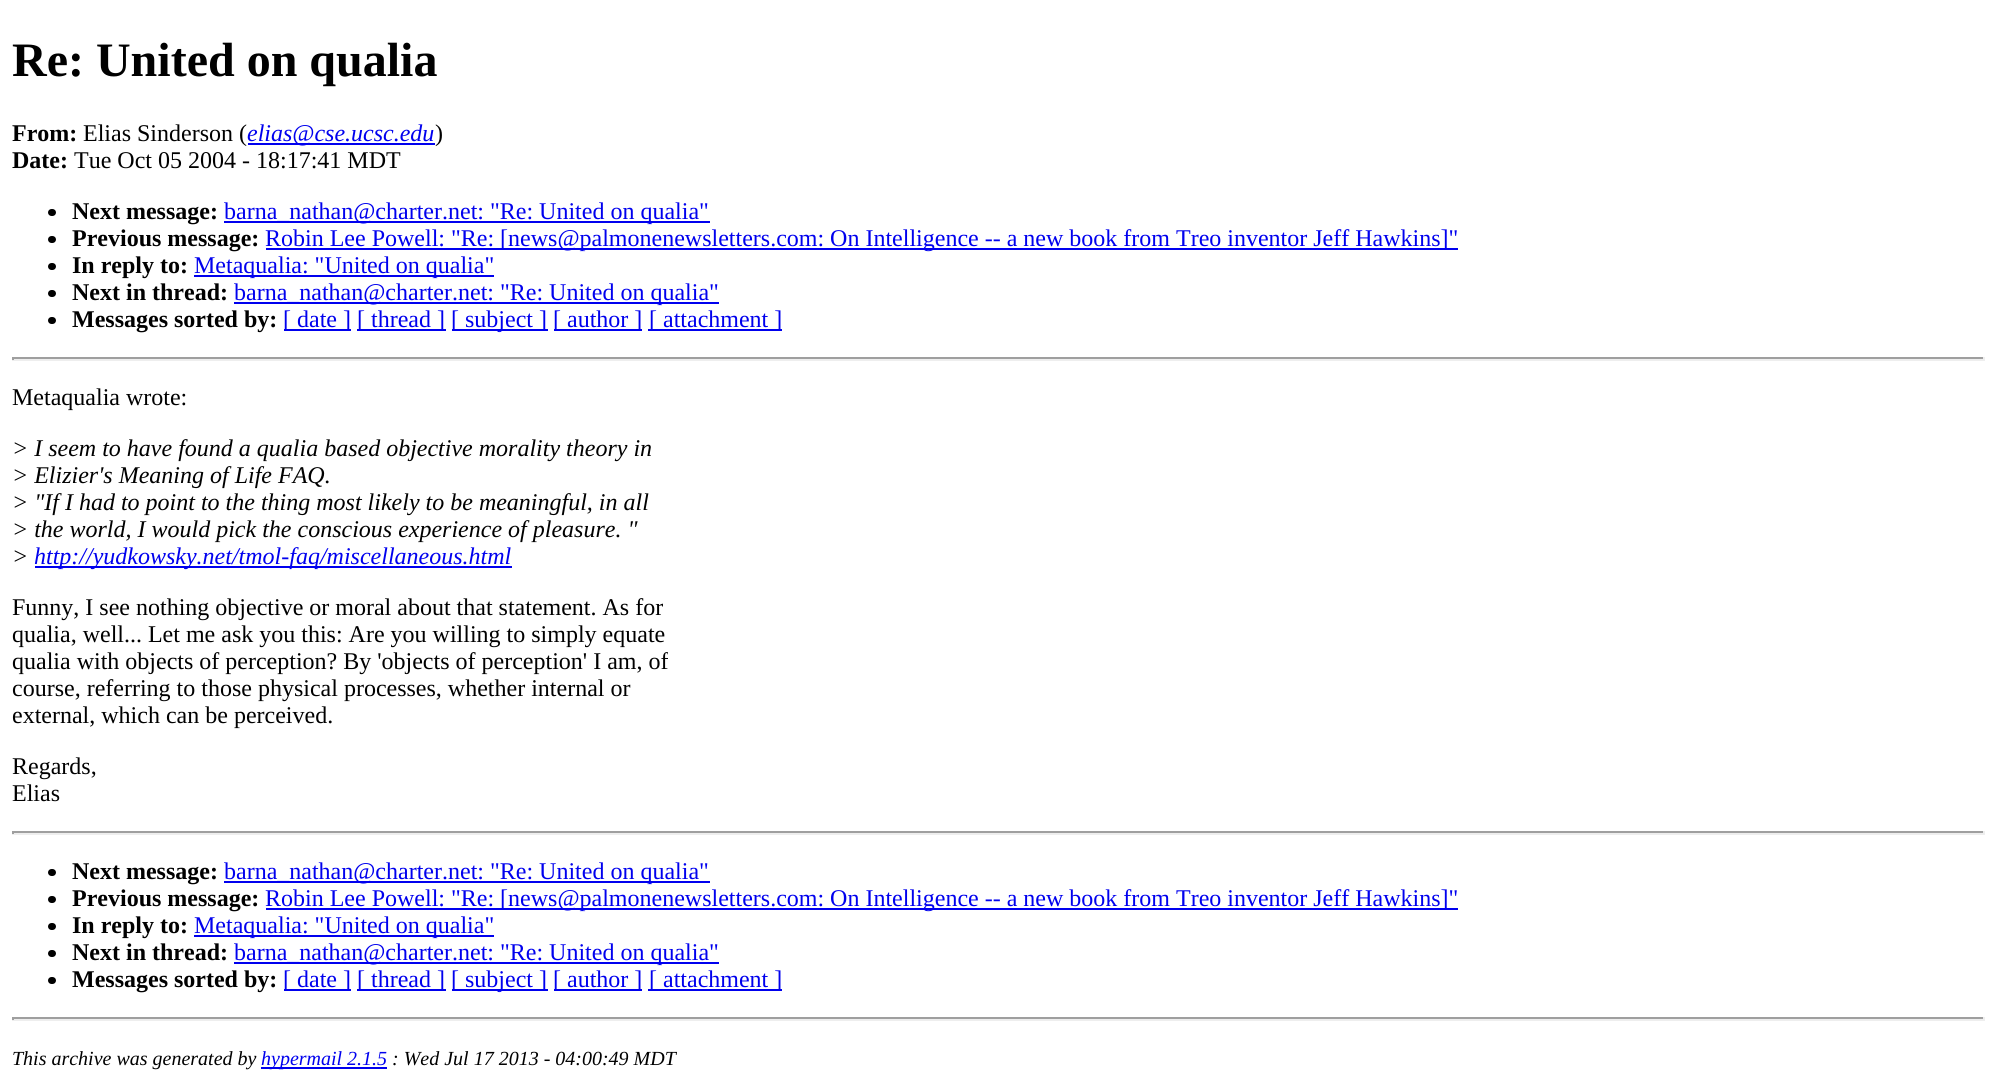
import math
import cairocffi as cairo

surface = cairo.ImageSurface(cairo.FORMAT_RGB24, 1996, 1085)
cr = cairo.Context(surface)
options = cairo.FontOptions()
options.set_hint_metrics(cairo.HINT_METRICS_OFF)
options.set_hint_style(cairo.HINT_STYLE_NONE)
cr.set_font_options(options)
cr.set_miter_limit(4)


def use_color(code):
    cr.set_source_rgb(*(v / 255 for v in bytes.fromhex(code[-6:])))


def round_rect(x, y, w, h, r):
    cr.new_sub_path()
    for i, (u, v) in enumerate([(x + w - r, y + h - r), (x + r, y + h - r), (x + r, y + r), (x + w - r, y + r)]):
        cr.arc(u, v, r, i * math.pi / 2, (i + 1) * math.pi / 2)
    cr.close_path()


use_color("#ffffff")
cr.paint()
cr.select_font_face("Liberation Serif", cairo.FONT_SLANT_NORMAL, cairo.FONT_WEIGHT_BOLD)
cr.set_font_size(48)
use_color("#000000")
cr.move_to(12, 76)
cr.show_text("Re: United on qualia")
cr.set_font_size(24)
cr.move_to(12, 141)
cr.show_text("From:")
cr.select_font_face("Liberation Serif")
cr.move_to(83, 141)
cr.show_text("Elias Sinderson (")
use_color("#0000ee")
cr.rectangle(248, 143, 187, 2)
cr.fill()
cr.select_font_face("Liberation Serif", cairo.FONT_SLANT_ITALIC)
cr.move_to(247, 141)
cr.show_text("elias@cse.ucsc.edu")
cr.select_font_face("Liberation Serif")
use_color("#000000")
cr.move_to(435, 141)
cr.show_text(")")
cr.select_font_face("Liberation Serif", cairo.FONT_SLANT_NORMAL, cairo.FONT_WEIGHT_BOLD)
cr.move_to(12, 168)
cr.show_text("Date:")
cr.select_font_face("Liberation Serif")
cr.move_to(74, 168)
cr.show_text("Tue Oct 05 2004 - 18:17:41 MDT")
round_rect(48, 209, 8, 7, 3.5)
cr.fill()
cr.select_font_face("Liberation Serif", cairo.FONT_SLANT_NORMAL, cairo.FONT_WEIGHT_BOLD)
cr.move_to(72, 219)
cr.show_text("Next message:")
use_color("#0000ee")
cr.rectangle(224, 221, 486, 2)
cr.fill()
cr.select_font_face("Liberation Serif")
cr.move_to(224, 219)
cr.show_text("barna_nathan@charter.net: \"Re: United on qualia\"")
use_color("#000000")
round_rect(48, 236, 8, 7, 3.5)
cr.fill()
cr.select_font_face("Liberation Serif", cairo.FONT_SLANT_NORMAL, cairo.FONT_WEIGHT_BOLD)
cr.move_to(72, 246)
cr.show_text("Previous message:")
use_color("#0000ee")
cr.rectangle(266, 248, 1192, 2)
cr.fill()
cr.select_font_face("Liberation Serif")
cr.move_to(265, 246)
cr.show_text("Robin Lee Powell: \"Re: [news@palmonenewsletters.com: On Intelligence -- a new book from Treo inventor Jeff Hawkins]\"")
use_color("#000000")
round_rect(48, 263, 8, 7, 3.5)
cr.fill()
cr.select_font_face("Liberation Serif", cairo.FONT_SLANT_NORMAL, cairo.FONT_WEIGHT_BOLD)
cr.move_to(72, 273)
cr.show_text("In reply to:")
use_color("#0000ee")
cr.rectangle(194, 275, 300, 2)
cr.fill()
cr.select_font_face("Liberation Serif")
cr.move_to(194, 273)
cr.show_text("Metaqualia: \"United on qualia\"")
use_color("#000000")
round_rect(48, 290, 8, 7, 3.5)
cr.fill()
cr.select_font_face("Liberation Serif", cairo.FONT_SLANT_NORMAL, cairo.FONT_WEIGHT_BOLD)
cr.move_to(72, 300)
cr.show_text("Next in thread:")
use_color("#0000ee")
cr.rectangle(234, 302, 485, 2)
cr.fill()
cr.select_font_face("Liberation Serif")
cr.move_to(234, 300)
cr.show_text("barna_nathan@charter.net: \"Re: United on qualia\"")
use_color("#000000")
round_rect(48, 317, 8, 7, 3.5)
cr.fill()
cr.select_font_face("Liberation Serif", cairo.FONT_SLANT_NORMAL, cairo.FONT_WEIGHT_BOLD)
cr.move_to(72, 327)
cr.show_text("Messages sorted by:")
use_color("#0000ee")
cr.rectangle(284, 329, 67, 2)
cr.fill()
cr.select_font_face("Liberation Serif")
cr.move_to(283, 327)
cr.show_text("[ date ]")
cr.rectangle(357, 329, 89, 2)
cr.fill()
cr.move_to(357, 327)
cr.show_text("[ thread ]")
cr.rectangle(452, 329, 96, 2)
cr.fill()
cr.move_to(451, 327)
cr.show_text("[ subject ]")
cr.rectangle(554, 329, 88, 2)
cr.fill()
cr.move_to(553, 327)
cr.show_text("[ author ]")
cr.rectangle(648, 329, 134, 2)
cr.fill()
cr.move_to(649, 327)
cr.show_text("[ attachment ]")
use_color("#9f9f9f")
cr.rectangle(12, 357, 1973, 2)
cr.fill()
use_color("#eeeeee")
cr.rectangle(1983, 357, 2, 3)
cr.fill()
cr.rectangle(12, 359, 1973, 2)
cr.fill()
use_color("#9f9f9f")
cr.rectangle(12, 357, 2, 3)
cr.fill()
use_color("#000000")
cr.move_to(12, 405)
cr.show_text("Metaqualia wrote:")
cr.select_font_face("Liberation Serif", cairo.FONT_SLANT_ITALIC)
cr.move_to(12, 456)
cr.show_text("> I seem to have found a qualia based objective morality theory in")
cr.move_to(12, 483)
cr.show_text("> Elizier's Meaning of Life FAQ.")
cr.move_to(12, 510)
cr.show_text("> \"If I had to point to the thing most likely to be meaningful, in all")
cr.move_to(12, 537)
cr.show_text("> the world, I would pick the conscious experience of pleasure. \"")
cr.move_to(12, 564)
cr.show_text(">")
use_color("#0000ee")
cr.rectangle(35, 566, 477, 2)
cr.fill()
cr.move_to(34, 564)
cr.show_text("http://yudkowsky.net/tmol-faq/miscellaneous.html")
cr.select_font_face("Liberation Serif")
use_color("#000000")
cr.move_to(12, 615)
cr.show_text("Funny, I see nothing objective or moral about that statement. As for")
cr.move_to(12, 642)
cr.show_text("qualia, well... Let me ask you this: Are you willing to simply equate")
cr.move_to(12, 669)
cr.show_text("qualia with objects of perception? By 'objects of perception' I am, of")
cr.move_to(12, 696)
cr.show_text("course, referring to those physical processes, whether internal or")
cr.move_to(12, 723)
cr.show_text("external, which can be perceived.")
cr.move_to(12, 774)
cr.show_text("Regards,")
cr.move_to(12, 801)
cr.show_text("Elias")
use_color("#9f9f9f")
cr.rectangle(12, 831, 1973, 2)
cr.fill()
use_color("#eeeeee")
cr.rectangle(1983, 831, 2, 3)
cr.fill()
cr.rectangle(12, 833, 1973, 2)
cr.fill()
use_color("#9f9f9f")
cr.rectangle(12, 831, 2, 3)
cr.fill()
use_color("#000000")
round_rect(48, 869, 8, 7, 3.5)
cr.fill()
cr.select_font_face("Liberation Serif", cairo.FONT_SLANT_NORMAL, cairo.FONT_WEIGHT_BOLD)
cr.move_to(72, 879)
cr.show_text("Next message:")
use_color("#0000ee")
cr.rectangle(224, 881, 486, 2)
cr.fill()
cr.select_font_face("Liberation Serif")
cr.move_to(224, 879)
cr.show_text("barna_nathan@charter.net: \"Re: United on qualia\"")
use_color("#000000")
round_rect(48, 896, 8, 7, 3.5)
cr.fill()
cr.select_font_face("Liberation Serif", cairo.FONT_SLANT_NORMAL, cairo.FONT_WEIGHT_BOLD)
cr.move_to(72, 906)
cr.show_text("Previous message:")
use_color("#0000ee")
cr.rectangle(266, 908, 1192, 2)
cr.fill()
cr.select_font_face("Liberation Serif")
cr.move_to(265, 906)
cr.show_text("Robin Lee Powell: \"Re: [news@palmonenewsletters.com: On Intelligence -- a new book from Treo inventor Jeff Hawkins]\"")
use_color("#000000")
round_rect(48, 923, 8, 7, 3.5)
cr.fill()
cr.select_font_face("Liberation Serif", cairo.FONT_SLANT_NORMAL, cairo.FONT_WEIGHT_BOLD)
cr.move_to(72, 933)
cr.show_text("In reply to:")
use_color("#0000ee")
cr.rectangle(194, 935, 300, 2)
cr.fill()
cr.select_font_face("Liberation Serif")
cr.move_to(194, 933)
cr.show_text("Metaqualia: \"United on qualia\"")
use_color("#000000")
round_rect(48, 950, 8, 7, 3.5)
cr.fill()
cr.select_font_face("Liberation Serif", cairo.FONT_SLANT_NORMAL, cairo.FONT_WEIGHT_BOLD)
cr.move_to(72, 960)
cr.show_text("Next in thread:")
use_color("#0000ee")
cr.rectangle(234, 962, 485, 2)
cr.fill()
cr.select_font_face("Liberation Serif")
cr.move_to(234, 960)
cr.show_text("barna_nathan@charter.net: \"Re: United on qualia\"")
use_color("#000000")
round_rect(48, 977, 8, 7, 3.5)
cr.fill()
cr.select_font_face("Liberation Serif", cairo.FONT_SLANT_NORMAL, cairo.FONT_WEIGHT_BOLD)
cr.move_to(72, 987)
cr.show_text("Messages sorted by:")
use_color("#0000ee")
cr.rectangle(284, 989, 67, 2)
cr.fill()
cr.select_font_face("Liberation Serif")
cr.move_to(283, 987)
cr.show_text("[ date ]")
cr.rectangle(357, 989, 89, 2)
cr.fill()
cr.move_to(357, 987)
cr.show_text("[ thread ]")
cr.rectangle(452, 989, 96, 2)
cr.fill()
cr.move_to(451, 987)
cr.show_text("[ subject ]")
cr.rectangle(554, 989, 88, 2)
cr.fill()
cr.move_to(553, 987)
cr.show_text("[ author ]")
cr.rectangle(648, 989, 134, 2)
cr.fill()
cr.move_to(649, 987)
cr.show_text("[ attachment ]")
use_color("#9f9f9f")
cr.rectangle(12, 1017, 1973, 2)
cr.fill()
use_color("#eeeeee")
cr.rectangle(1983, 1017, 2, 3)
cr.fill()
cr.rectangle(12, 1019, 1973, 2)
cr.fill()
use_color("#9f9f9f")
cr.rectangle(12, 1017, 2, 3)
cr.fill()
cr.select_font_face("Liberation Serif", cairo.FONT_SLANT_ITALIC)
cr.set_font_size(20)
use_color("#000000")
cr.move_to(12, 1065)
cr.show_text("This archive was generated by")
use_color("#0000ee")
cr.rectangle(261, 1067, 126, 2)
cr.fill()
cr.move_to(261, 1065)
cr.show_text("hypermail 2.1.5")
use_color("#000000")
cr.move_to(392, 1065)
cr.show_text(": Wed Jul 17 2013 - 04:00:49 MDT")
surface.write_to_png("result.png")
